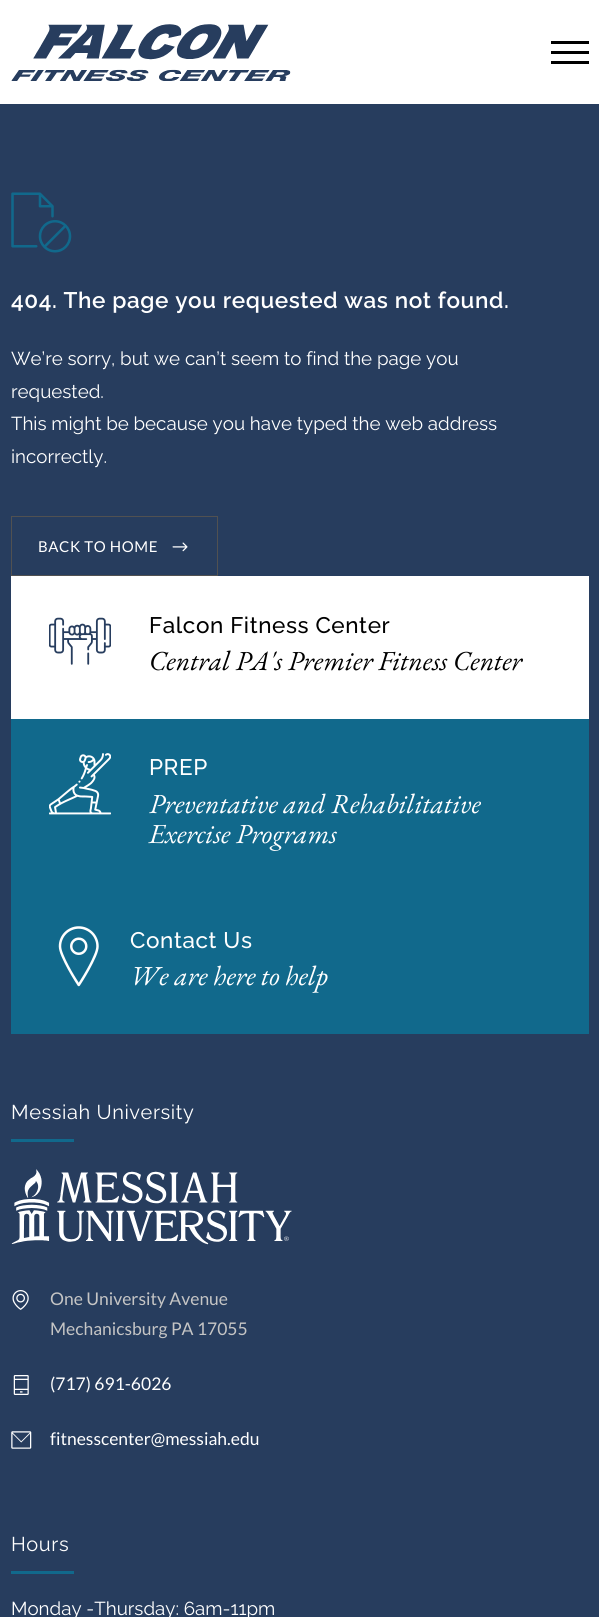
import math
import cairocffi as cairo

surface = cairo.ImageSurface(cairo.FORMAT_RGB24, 599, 1617)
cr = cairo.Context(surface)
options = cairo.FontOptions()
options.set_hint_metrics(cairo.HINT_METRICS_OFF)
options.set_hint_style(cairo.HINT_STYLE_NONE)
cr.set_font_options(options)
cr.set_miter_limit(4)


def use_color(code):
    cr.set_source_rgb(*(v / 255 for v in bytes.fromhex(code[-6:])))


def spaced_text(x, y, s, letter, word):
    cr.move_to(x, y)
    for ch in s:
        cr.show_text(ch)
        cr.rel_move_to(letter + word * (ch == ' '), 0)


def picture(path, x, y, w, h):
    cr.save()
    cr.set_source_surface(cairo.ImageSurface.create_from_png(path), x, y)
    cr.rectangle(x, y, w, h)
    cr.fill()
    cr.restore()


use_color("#273d5e")
cr.paint()
use_color("#ffffff")
cr.rectangle(0, 0, 599, 104)
cr.fill()
picture("img1.png", 11, 24, 280, 57)
use_color("#000000")
cr.rectangle(551, 41, 38, 3)
cr.fill()
cr.rectangle(551, 51, 38, 3)
cr.fill()
cr.rectangle(551, 61, 38, 3)
cr.fill()
picture("img2.png", 11, 192, 61, 61)
cr.select_font_face("Raleway SemiBold")
cr.set_font_size(22.5)
use_color("#ffffff")
spaced_text(11, 308, "404. The page you requested was not found.", 0.6, 0)
cr.select_font_face("Raleway")
cr.set_font_size(18.75)
cr.move_to(11, 365)
cr.show_text("We’re sorry, but we can’t seem to find the page you")
cr.move_to(11, 398)
cr.show_text("requested.")
cr.move_to(11, 430)
cr.show_text("This might be because you have typed the web address")
cr.move_to(11, 463)
cr.show_text("incorrectly.")
cr.rectangle(11.5, 516.5, 206, 59)
use_color("#515151")
cr.set_line_width(1)
cr.stroke()
cr.select_font_face("Lato")
cr.set_font_size(15)
use_color("#ffffff")
spaced_text(38, 552, "BACK TO HOME", 0.6, 0)
picture("img3.png", 172, 542, 16, 10)
cr.rectangle(11, 576, 578, 143)
cr.fill()
picture("img4.png", 49, 617, 62, 48)
cr.select_font_face("Raleway Medium")
cr.set_font_size(22.5)
use_color("#000000")
spaced_text(149, 633, "Falcon Fitness Center", 0.6, 0)
cr.select_font_face("EB Garamond", cairo.FONT_SLANT_ITALIC)
cr.set_font_size(27.5)
cr.move_to(149, 670)
cr.show_text("Central PA's Premier Fitness Center")
use_color("#11698c")
cr.rectangle(11, 719, 578, 315)
cr.fill()
picture("img5.png", 49, 753, 62, 62)
cr.select_font_face("Raleway Medium")
cr.set_font_size(22.5)
use_color("#ffffff")
spaced_text(149, 775, "PREP", 0.6, 0)
cr.select_font_face("EB Garamond", cairo.FONT_SLANT_ITALIC)
cr.set_font_size(27.5)
cr.move_to(149, 813)
cr.show_text("Preventative and Rehabilitative")
cr.move_to(149, 843)
cr.show_text("Exercise Programs")
picture("img6.png", 58, 926, 41, 61)
cr.select_font_face("Raleway Medium")
cr.set_font_size(22.5)
spaced_text(130, 948, "Contact Us", 0.6, 0)
cr.select_font_face("EB Garamond", cairo.FONT_SLANT_ITALIC)
cr.set_font_size(27.5)
cr.move_to(130, 985)
cr.show_text("We are here to help")
cr.select_font_face("Raleway")
cr.set_font_size(20)
spaced_text(11, 1119, "Messiah University", 0.6, 0)
use_color("#11698c")
cr.rectangle(11, 1139, 63, 3)
cr.fill()
picture("img7.png", 11, 1169, 281, 76)
picture("img8.png", 12, 1290, 17, 20)
cr.select_font_face("Lato")
cr.set_font_size(17.5)
use_color("#c5c5c5")
cr.move_to(50, 1305)
cr.show_text("One University Avenue")
cr.move_to(50, 1335)
cr.show_text("Mechanicsburg PA 17055")
picture("img9.png", 13, 1375, 16, 20)
use_color("#ffffff")
cr.move_to(50, 1390)
cr.show_text("(717) 691-6026")
picture("img10.png", 11, 1431, 21, 18)
cr.move_to(50, 1445)
cr.show_text("fitnesscenter@messiah.edu")
cr.select_font_face("Raleway")
cr.set_font_size(20)
spaced_text(11, 1551, "Hours", 0.6, 0)
use_color("#11698c")
cr.rectangle(11, 1571, 63, 3)
cr.fill()
cr.set_font_size(18.75)
use_color("#ffffff")
cr.move_to(11, 1615)
cr.show_text("Monday -Thursday: 6am-11pm")
surface.write_to_png("result.png")
